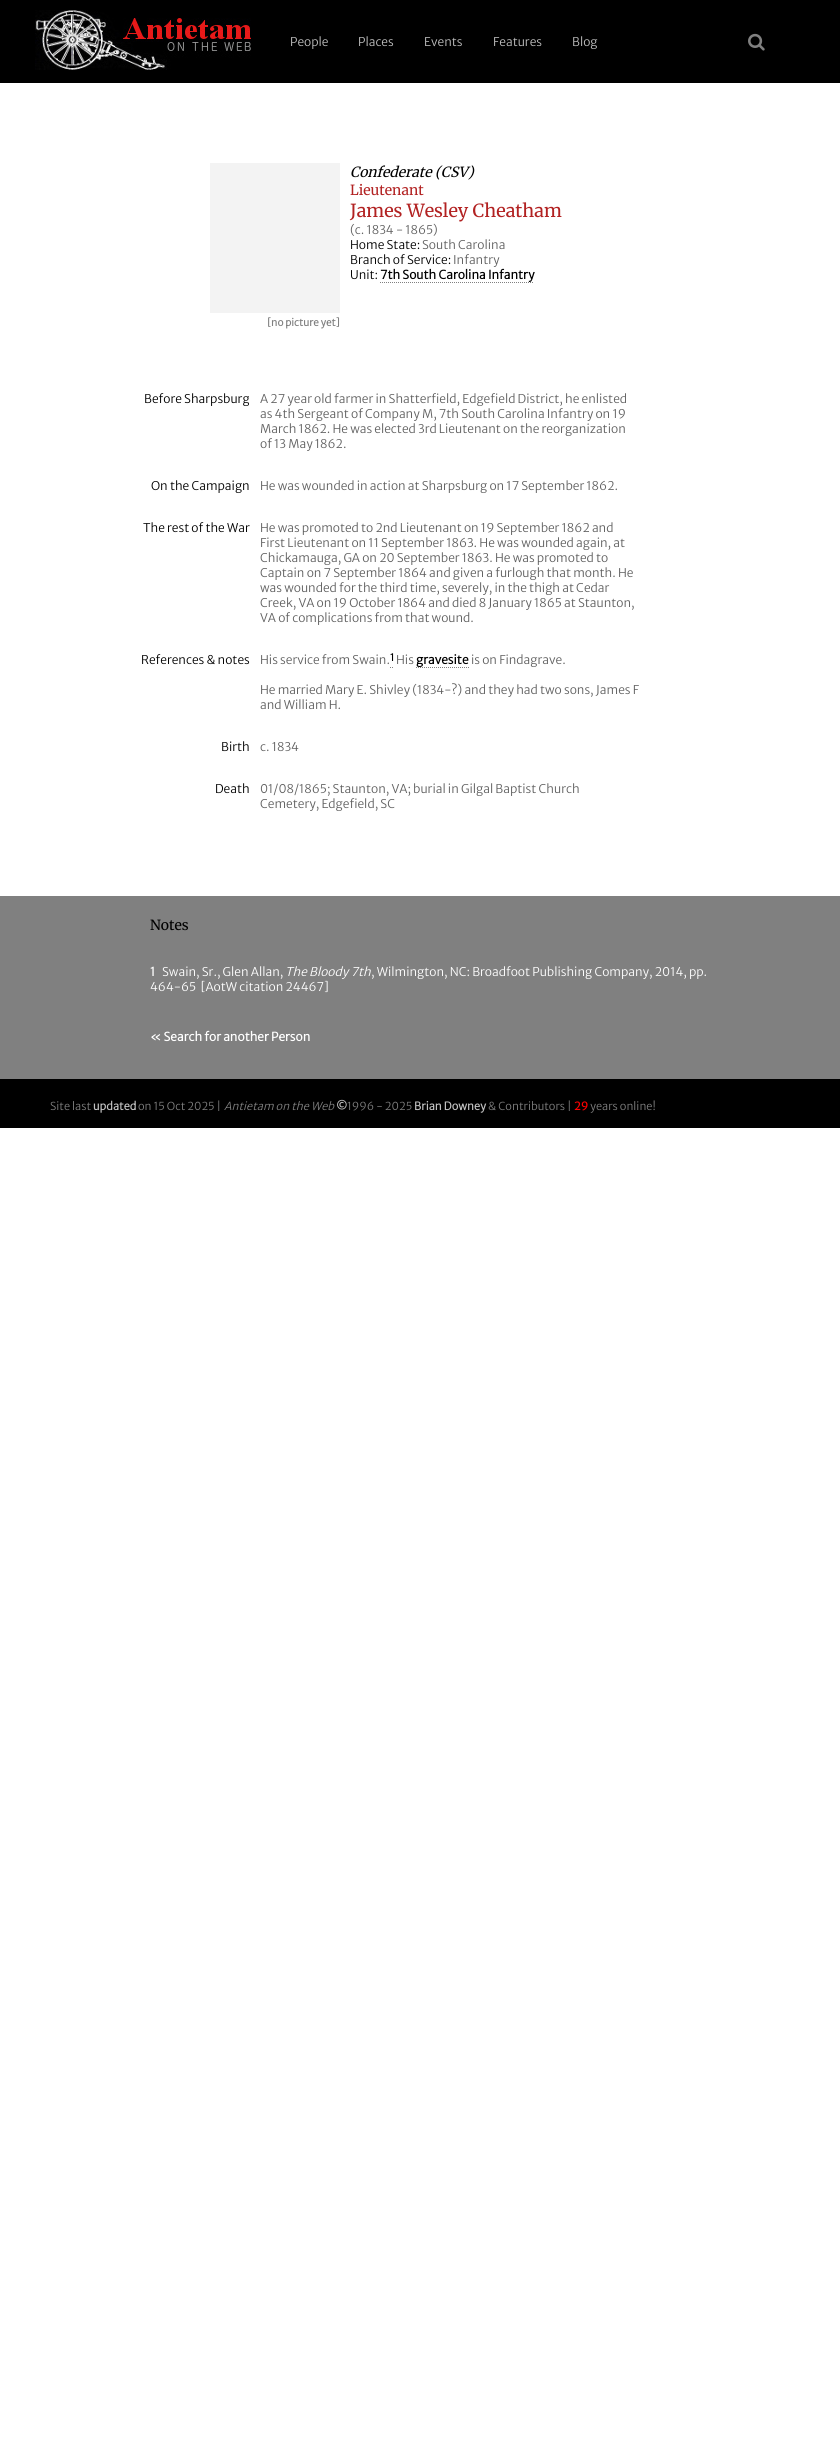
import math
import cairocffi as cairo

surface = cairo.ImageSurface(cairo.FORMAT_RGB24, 840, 2450)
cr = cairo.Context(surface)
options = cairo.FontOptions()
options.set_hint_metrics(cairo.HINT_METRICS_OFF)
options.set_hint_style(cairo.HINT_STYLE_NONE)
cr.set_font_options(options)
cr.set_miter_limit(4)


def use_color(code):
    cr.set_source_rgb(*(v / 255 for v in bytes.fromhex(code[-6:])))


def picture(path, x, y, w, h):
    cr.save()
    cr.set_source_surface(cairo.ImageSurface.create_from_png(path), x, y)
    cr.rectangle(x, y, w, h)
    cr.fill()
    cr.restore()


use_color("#ffffff")
cr.paint()
use_color("#000000")
cr.rectangle(0, 0, 840, 83)
cr.fill()
picture("img1.png", 35, 10, 216, 60)
cr.select_font_face("Merriweather Sans Light")
cr.set_font_size(12)
use_color("#c0c0c0")
cr.move_to(290, 46)
cr.show_text("People")
cr.move_to(358, 46)
cr.show_text("Places")
cr.move_to(424, 46)
cr.show_text("Events")
cr.move_to(493, 46)
cr.show_text("Features")
cr.move_to(572, 46)
cr.show_text("Blog")
picture("img2.png", 748, 33, 17, 18)
cr.select_font_face("Merriweather Light", cairo.FONT_SLANT_ITALIC)
cr.set_font_size(14)
use_color("#000000")
cr.move_to(350, 177)
cr.show_text("Confederate (CSV)")
cr.select_font_face("Merriweather Light")
use_color("#b22222")
cr.move_to(350, 195)
cr.show_text("Lieutenant")
cr.set_font_size(18)
cr.move_to(350, 217)
cr.show_text("James Wesley Cheatham")
cr.select_font_face("Merriweather Sans Light")
cr.set_font_size(12)
use_color("#606060")
cr.move_to(350, 234)
cr.show_text("(c. 1834 - 1865)")
use_color("#000000")
cr.move_to(350, 249)
cr.show_text("Home State:")
use_color("#606060")
cr.move_to(422, 249)
cr.show_text("South Carolina")
use_color("#000000")
cr.move_to(350, 264)
cr.show_text("Branch of Service:")
use_color("#606060")
cr.move_to(453, 264)
cr.show_text("Infantry")
use_color("#000000")
cr.move_to(350, 279)
cr.show_text("Unit:")
cr.select_font_face("Merriweather Sans", cairo.FONT_SLANT_NORMAL, cairo.FONT_WEIGHT_BOLD)
cr.move_to(380, 279)
cr.show_text("7th South Carolina Infantry")
cr.new_path()
cr.move_to(380, 282.5)
cr.line_to(534, 282.5)
use_color("#808080")
cr.set_line_width(1)
cr.set_dash([1, 1])
cr.stroke()
use_color("#f3f3f3")
cr.rectangle(210, 163, 130, 150)
cr.fill()
cr.set_font_size(10)
use_color("#808080")
cr.move_to(267, 326)
cr.show_text("[no picture yet]")
cr.select_font_face("Merriweather Sans Light")
cr.set_font_size(12)
use_color("#000000")
cr.move_to(144, 403)
cr.show_text("Before Sharpsburg")
use_color("#606060")
cr.move_to(260, 403)
cr.show_text("A 27 year old farmer in Shatterfield, Edgefield District, he enlisted")
cr.move_to(260, 418)
cr.show_text("as 4th Sergeant of Company M, 7th South Carolina Infantry on 19")
cr.move_to(260, 433)
cr.show_text("March 1862. He was elected 3rd Lieutenant on the reorganization")
cr.move_to(260, 448)
cr.show_text("of 13 May 1862.")
use_color("#000000")
cr.move_to(151, 490)
cr.show_text("On the Campaign")
use_color("#606060")
cr.move_to(260, 490)
cr.show_text("He was wounded in action at Sharpsburg on 17 September 1862.")
use_color("#000000")
cr.move_to(143, 532)
cr.show_text("The rest of the War")
use_color("#606060")
cr.move_to(260, 532)
cr.show_text("He was promoted to 2nd Lieutenant on 19 September 1862 and")
cr.move_to(260, 547)
cr.show_text("First Lieutenant on 11 September 1863. He was wounded again, at")
cr.move_to(260, 562)
cr.show_text("Chickamauga, GA on 20 September 1863. He was promoted to")
cr.move_to(260, 577)
cr.show_text("Captain on 7 September 1864 and given a furlough that month. He")
cr.move_to(260, 592)
cr.show_text("was wounded for the third time, severely, in the thigh at Cedar")
cr.move_to(260, 607)
cr.show_text("Creek, VA on 19 October 1864 and died 8 January 1865 at Staunton,")
cr.move_to(260, 622)
cr.show_text("VA of complications from that wound.")
use_color("#000000")
cr.move_to(141, 664)
cr.show_text("References & notes")
use_color("#606060")
cr.move_to(260, 664)
cr.show_text("His service from Swain.")
cr.select_font_face("Merriweather Sans", cairo.FONT_SLANT_NORMAL, cairo.FONT_WEIGHT_BOLD)
cr.set_font_size(10)
use_color("#000000")
cr.move_to(390, 661)
cr.show_text("1")
cr.new_path()
cr.move_to(390, 667.5)
cr.line_to(391, 667.5)
cr.move_to(392, 667.5)
cr.line_to(393, 667.5)
use_color("#808080")
cr.set_dash([])
cr.stroke()
cr.select_font_face("Merriweather Sans Light")
cr.set_font_size(12)
use_color("#606060")
cr.move_to(396, 664)
cr.show_text("His")
cr.select_font_face("Merriweather Sans", cairo.FONT_SLANT_NORMAL, cairo.FONT_WEIGHT_BOLD)
use_color("#000000")
cr.move_to(416, 664)
cr.show_text("gravesite")
cr.new_path()
cr.move_to(416, 667.5)
cr.line_to(469, 667.5)
use_color("#808080")
cr.set_dash([1, 1])
cr.stroke()
cr.select_font_face("Merriweather Sans Light")
use_color("#606060")
cr.move_to(471, 664)
cr.show_text("is on Findagrave.")
cr.move_to(260, 694)
cr.show_text("He married Mary E. Shivley (1834-?) and they had two sons, James F")
cr.move_to(260, 709)
cr.show_text("and William H.")
use_color("#000000")
cr.move_to(221, 751)
cr.show_text("Birth")
use_color("#606060")
cr.move_to(260, 751)
cr.show_text("c. 1834")
use_color("#000000")
cr.move_to(215, 793)
cr.show_text("Death")
use_color("#606060")
cr.move_to(260, 793)
cr.show_text("01/08/1865; Staunton, VA; burial in Gilgal Baptist Church")
cr.move_to(260, 808)
cr.show_text("Cemetery, Edgefield, SC")
use_color("#808080")
cr.rectangle(0, 896, 840, 183)
cr.fill()
cr.select_font_face("Merriweather Light")
cr.set_font_size(14)
use_color("#000000")
cr.move_to(150, 930)
cr.show_text("Notes")
cr.select_font_face("Merriweather Sans", cairo.FONT_SLANT_NORMAL, cairo.FONT_WEIGHT_BOLD)
cr.set_font_size(12)
use_color("#ffffff")
cr.move_to(150, 976)
cr.show_text("1")
cr.select_font_face("Merriweather Sans Light")
cr.move_to(162, 976)
cr.show_text("Swain, Sr., Glen Allan,")
cr.select_font_face("Merriweather Sans Light", cairo.FONT_SLANT_ITALIC)
cr.move_to(285, 976)
cr.show_text("The Bloody 7th")
cr.select_font_face("Merriweather Sans Light")
cr.move_to(371, 976)
cr.show_text(", Wilmington, NC: Broadfoot Publishing Company, 2014, pp.")
cr.move_to(150, 991)
cr.show_text("464-65  [AotW citation 24467]")
cr.select_font_face("Merriweather Sans", cairo.FONT_SLANT_NORMAL, cairo.FONT_WEIGHT_BOLD)
cr.move_to(150, 1041)
cr.show_text("« Search for another Person")
use_color("#000000")
cr.rectangle(0, 1079, 840, 49)
cr.fill()
cr.select_font_face("Merriweather Sans Light")
cr.set_font_size(11)
use_color("#808080")
cr.move_to(50, 1110)
cr.show_text("Site last")
cr.select_font_face("Merriweather Sans", cairo.FONT_SLANT_NORMAL, cairo.FONT_WEIGHT_BOLD)
use_color("#c0c0c0")
cr.move_to(93, 1110)
cr.show_text("updated")
cr.select_font_face("Merriweather Sans Light")
use_color("#808080")
cr.move_to(138, 1110)
cr.show_text("on 15 Oct 2025 |")
cr.select_font_face("Merriweather Sans Light", cairo.FONT_SLANT_ITALIC)
cr.move_to(224, 1110)
cr.show_text("Antietam on the Web")
cr.select_font_face("Merriweather Sans", cairo.FONT_SLANT_NORMAL, cairo.FONT_WEIGHT_BOLD)
use_color("#c0c0c0")
cr.move_to(336, 1110)
cr.show_text("©")
cr.select_font_face("Merriweather Sans Light")
use_color("#808080")
cr.move_to(347, 1110)
cr.show_text("1996 - 2025")
cr.select_font_face("Merriweather Sans", cairo.FONT_SLANT_NORMAL, cairo.FONT_WEIGHT_BOLD)
use_color("#c0c0c0")
cr.move_to(414, 1110)
cr.show_text("Brian Downey")
cr.select_font_face("Merriweather Sans Light")
use_color("#808080")
cr.move_to(488, 1110)
cr.show_text("& Contributors |")
cr.select_font_face("Merriweather Sans", cairo.FONT_SLANT_NORMAL, cairo.FONT_WEIGHT_BOLD)
use_color("#ff0000")
cr.move_to(574, 1110)
cr.show_text("29")
cr.select_font_face("Merriweather Sans Light")
use_color("#808080")
cr.move_to(590, 1110)
cr.show_text("years online!")
surface.write_to_png("result.png")
